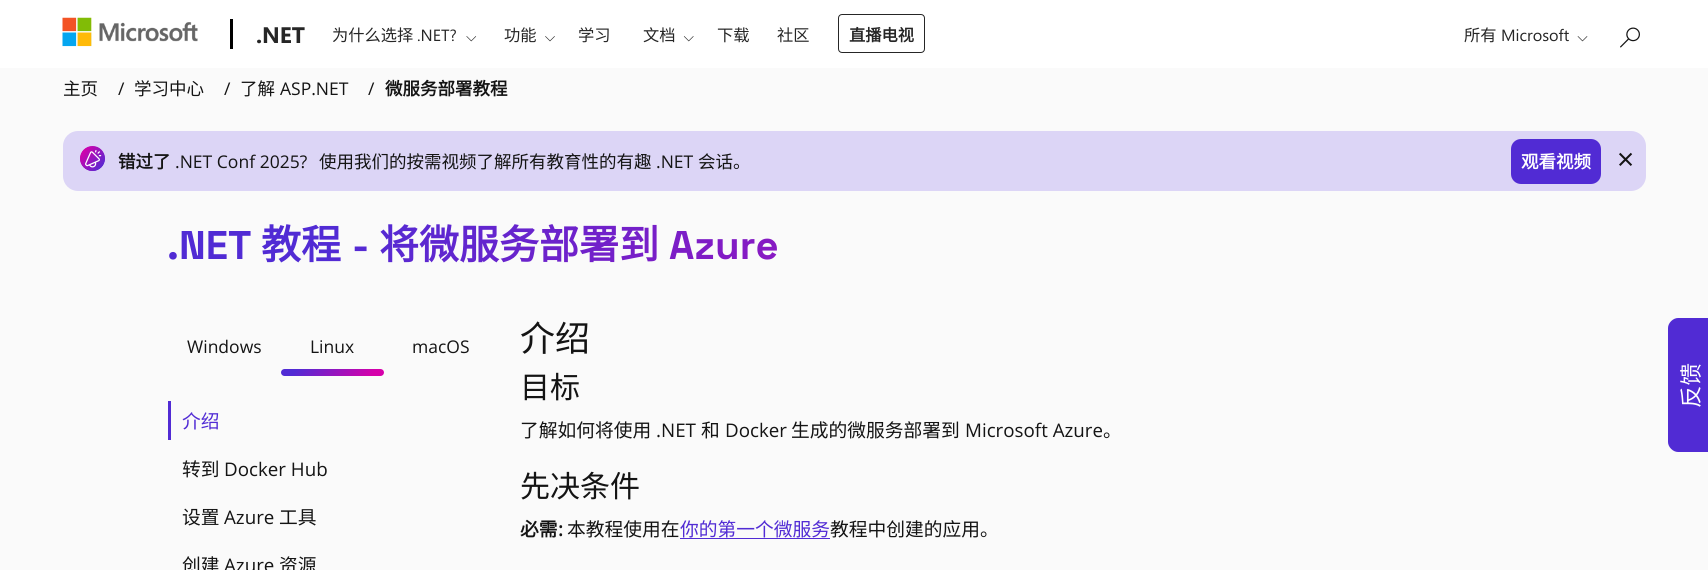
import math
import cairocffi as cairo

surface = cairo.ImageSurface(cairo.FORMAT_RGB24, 1708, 570)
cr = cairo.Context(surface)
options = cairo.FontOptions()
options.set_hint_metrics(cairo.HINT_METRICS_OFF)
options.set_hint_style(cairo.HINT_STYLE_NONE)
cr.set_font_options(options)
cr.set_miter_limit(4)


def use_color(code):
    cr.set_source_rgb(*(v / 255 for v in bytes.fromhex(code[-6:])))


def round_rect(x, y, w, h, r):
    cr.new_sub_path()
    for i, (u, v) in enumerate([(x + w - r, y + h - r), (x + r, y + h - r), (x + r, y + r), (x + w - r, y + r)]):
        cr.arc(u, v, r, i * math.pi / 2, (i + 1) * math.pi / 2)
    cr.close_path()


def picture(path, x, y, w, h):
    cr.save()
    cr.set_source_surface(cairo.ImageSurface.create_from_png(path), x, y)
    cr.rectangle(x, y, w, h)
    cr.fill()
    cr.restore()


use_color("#fafafa")
cr.paint()
use_color("#ffffff")
cr.rectangle(0, 0, 1708, 68)
cr.fill()
picture("img1.png", 62, 17, 136, 30)
use_color("#000000")
cr.rectangle(230, 19, 3, 30)
cr.fill()
cr.select_font_face("Segoe UI", cairo.FONT_SLANT_NORMAL, cairo.FONT_WEIGHT_BOLD)
cr.set_font_size(22.5)
use_color("#262626")
cr.move_to(256, 43)
cr.show_text(".NET")
cr.select_font_face("Noto Sans CJK SC")
cr.set_font_size(16.25)
cr.move_to(332, 41)
cr.show_text("为什么选择")
cr.select_font_face("Segoe UI")
cr.move_to(417, 41)
cr.show_text(".NET?")
picture("img2.png", 466, 36, 11, 6)
cr.select_font_face("Noto Sans CJK SC")
cr.move_to(504, 41)
cr.show_text("功能")
picture("img3.png", 545, 36, 10, 6)
cr.move_to(578, 41)
cr.show_text("学习")
cr.move_to(643, 41)
cr.show_text("文档")
picture("img4.png", 683, 36, 11, 6)
cr.move_to(717, 41)
cr.show_text("下载")
cr.move_to(777, 41)
cr.show_text("社区")
round_rect(838.5, 14.5, 86, 38, 3.5)
cr.set_line_width(1)
cr.stroke()
cr.select_font_face("Noto Sans CJK SC", cairo.FONT_SLANT_NORMAL, cairo.FONT_WEIGHT_BOLD)
cr.move_to(849, 41)
cr.show_text("直播电视")
cr.select_font_face("Noto Sans CJK SC")
cr.move_to(1464, 41)
cr.show_text("所有")
cr.select_font_face("Segoe UI")
cr.move_to(1501, 41)
cr.show_text("Microsoft")
picture("img5.png", 1577, 36, 11, 6)
picture("img6.png", 1620, 27, 20, 21)
cr.select_font_face("Noto Sans CJK SC")
cr.set_font_size(17.5)
use_color("#141414")
cr.move_to(63, 95)
cr.show_text("主页")
cr.select_font_face("Open Sans")
cr.move_to(118, 95)
cr.show_text("/")
cr.select_font_face("Noto Sans CJK SC")
cr.move_to(134, 95)
cr.show_text("学习中心")
cr.select_font_face("Open Sans")
cr.move_to(224, 95)
cr.show_text("/")
cr.select_font_face("Noto Sans CJK SC")
cr.move_to(240, 95)
cr.show_text("了解")
cr.select_font_face("Open Sans")
cr.move_to(280, 95)
cr.show_text("ASP.NET")
cr.move_to(368, 95)
cr.show_text("/")
cr.select_font_face("Noto Sans CJK SC", cairo.FONT_SLANT_NORMAL, cairo.FONT_WEIGHT_BOLD)
cr.move_to(385, 95)
cr.show_text("微服务部署教程")
use_color("#dcd5f6")
round_rect(63, 131, 1583, 60, 15)
cr.fill()
gradient = cairo.LinearGradient(80, 146, 105, 171)
gradient.add_color_stop_rgba(0, 0.839, 0, 0.667, 1)
gradient.add_color_stop_rgba(1, 0.318, 0.169, 0.831, 1)
cr.set_source(gradient)
cr.arc(92.5, 158.5, 12.5, 0, 2 * math.pi)
cr.fill()
picture("img7.png", 80, 146, 25, 25)
use_color("#141414")
cr.move_to(118, 168)
cr.show_text("错过了")
cr.select_font_face("Open Sans")
cr.move_to(175, 168)
cr.show_text(".NET Conf 2025?")
cr.select_font_face("Noto Sans CJK SC")
cr.move_to(319, 168)
cr.show_text("使用我们的按需视频了解所有教育性的有趣")
cr.select_font_face("Open Sans")
cr.move_to(656, 168)
cr.show_text(".NET")
cr.select_font_face("Noto Sans CJK SC")
cr.move_to(698, 168)
cr.show_text("会话。")
use_color("#512bd4")
round_rect(1511, 139, 90, 45, 10)
cr.fill()
cr.select_font_face("Noto Sans CJK SC", cairo.FONT_SLANT_NORMAL, cairo.FONT_WEIGHT_BOLD)
use_color("#ffffff")
cr.move_to(1521, 168)
cr.show_text("观看视频")
cr.select_font_face("Open Sans")
cr.set_font_size(30)
use_color("#141414")
cr.move_to(1617, 170)
cr.show_text("×")
cr.select_font_face("Space Grotesk Light")
cr.set_font_size(40)
gradient = cairo.LinearGradient(415, -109, 1294, 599)
gradient.add_color_stop_rgba(0.14, 0.318, 0.169, 0.831, 1)
gradient.add_color_stop_rgba(0.89, 0.839, 0, 0.667, 1)
cr.set_source(gradient)
cr.move_to(167, 259)
cr.show_text(".NET")
cr.select_font_face("Noto Sans CJK SC", cairo.FONT_SLANT_NORMAL, cairo.FONT_WEIGHT_BOLD)
cr.move_to(261, 259)
cr.show_text("教程")
cr.select_font_face("Space Grotesk Light")
cr.move_to(352, 259)
cr.show_text("-")
cr.select_font_face("Noto Sans CJK SC", cairo.FONT_SLANT_NORMAL, cairo.FONT_WEIGHT_BOLD)
cr.move_to(379, 259)
cr.show_text("将微服务部署到")
cr.select_font_face("Space Grotesk Light")
cr.move_to(669, 259)
cr.show_text("Azure")
cr.select_font_face("Open Sans")
cr.set_font_size(17.5)
use_color("#141414")
cr.move_to(187, 353)
cr.show_text("Windows")
cr.move_to(310, 353)
cr.show_text("Linux")
gradient = cairo.LinearGradient(300, 346, 365, 399)
gradient.add_color_stop_rgba(0.14, 0.318, 0.169, 0.831, 1)
gradient.add_color_stop_rgba(0.89, 0.839, 0, 0.667, 1)
cr.set_source(gradient)
round_rect(281, 369, 103, 7, 3.5)
cr.fill()
use_color("#141414")
cr.move_to(412, 353)
cr.show_text("macOS")
use_color("#512bd4")
cr.rectangle(168, 401, 3, 39)
cr.fill()
cr.select_font_face("Noto Sans CJK SC")
cr.set_font_size(18.75)
cr.move_to(182, 428)
cr.show_text("介绍")
use_color("#141414")
cr.move_to(182, 476)
cr.show_text("转到")
cr.select_font_face("Open Sans")
cr.move_to(224, 476)
cr.show_text("Docker Hub")
cr.select_font_face("Noto Sans CJK SC")
cr.move_to(182, 524)
cr.show_text("设置")
cr.select_font_face("Open Sans")
cr.move_to(224, 524)
cr.show_text("Azure")
cr.select_font_face("Noto Sans CJK SC")
cr.move_to(279, 524)
cr.show_text("工具")
cr.move_to(182, 572)
cr.show_text("创建")
cr.select_font_face("Open Sans")
cr.move_to(224, 572)
cr.show_text("Azure")
cr.select_font_face("Noto Sans CJK SC")
cr.move_to(279, 572)
cr.show_text("资源")
cr.set_font_size(35)
cr.move_to(520, 351)
cr.show_text("介绍")
cr.set_font_size(30)
cr.move_to(520, 398)
cr.show_text("目标")
cr.set_font_size(18.75)
cr.move_to(520, 437)
cr.show_text("了解如何将使用")
cr.select_font_face("Open Sans")
cr.move_to(656, 437)
cr.show_text(".NET")
cr.select_font_face("Noto Sans CJK SC")
cr.move_to(701, 437)
cr.show_text("和")
cr.select_font_face("Open Sans")
cr.move_to(725, 437)
cr.show_text("Docker")
cr.select_font_face("Noto Sans CJK SC")
cr.move_to(791, 437)
cr.show_text("生成的微服务部署到")
cr.select_font_face("Open Sans")
cr.move_to(965, 437)
cr.show_text("Microsoft Azure")
cr.select_font_face("Noto Sans CJK SC")
cr.move_to(1103, 437)
cr.show_text("。")
cr.set_font_size(30)
cr.move_to(520, 497)
cr.show_text("先决条件")
cr.select_font_face("Noto Sans CJK SC", cairo.FONT_SLANT_NORMAL, cairo.FONT_WEIGHT_BOLD)
cr.set_font_size(18.75)
cr.move_to(520, 536)
cr.show_text("必需")
cr.select_font_face("Open Sans", cairo.FONT_SLANT_NORMAL, cairo.FONT_WEIGHT_BOLD)
cr.move_to(558, 536)
cr.show_text(":")
cr.select_font_face("Noto Sans CJK SC")
cr.move_to(567, 536)
cr.show_text("本教程使用在")
use_color("#512bd4")
cr.move_to(680, 536)
cr.show_text("你的第一个微服务")
cr.rectangle(680, 538, 150, 1)
cr.fill()
use_color("#141414")
cr.move_to(830, 536)
cr.show_text("教程中创建的应用。")
use_color("#512bd4")
cr.new_path()
cr.move_to(1668, 442)
cr.line_to(1668, 328)
cr.curve_to(1668, 323, 1673, 318, 1678, 318)
cr.line_to(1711, 318)
cr.curve_to(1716, 318, 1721, 323, 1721, 328)
cr.line_to(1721, 442)
cr.curve_to(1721, 447, 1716, 452, 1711, 452)
cr.line_to(1678, 452)
cr.curve_to(1673, 452, 1668, 447, 1668, 442)
cr.close_path()
cr.fill()
cr.set_font_size(22.5)
use_color("#ffffff")
cr.save()
cr.translate(1699, 408)
cr.rotate(-90 * math.pi / 180)
cr.move_to(0, 0)
cr.show_text("反馈")
cr.restore()
surface.write_to_png("result.png")
